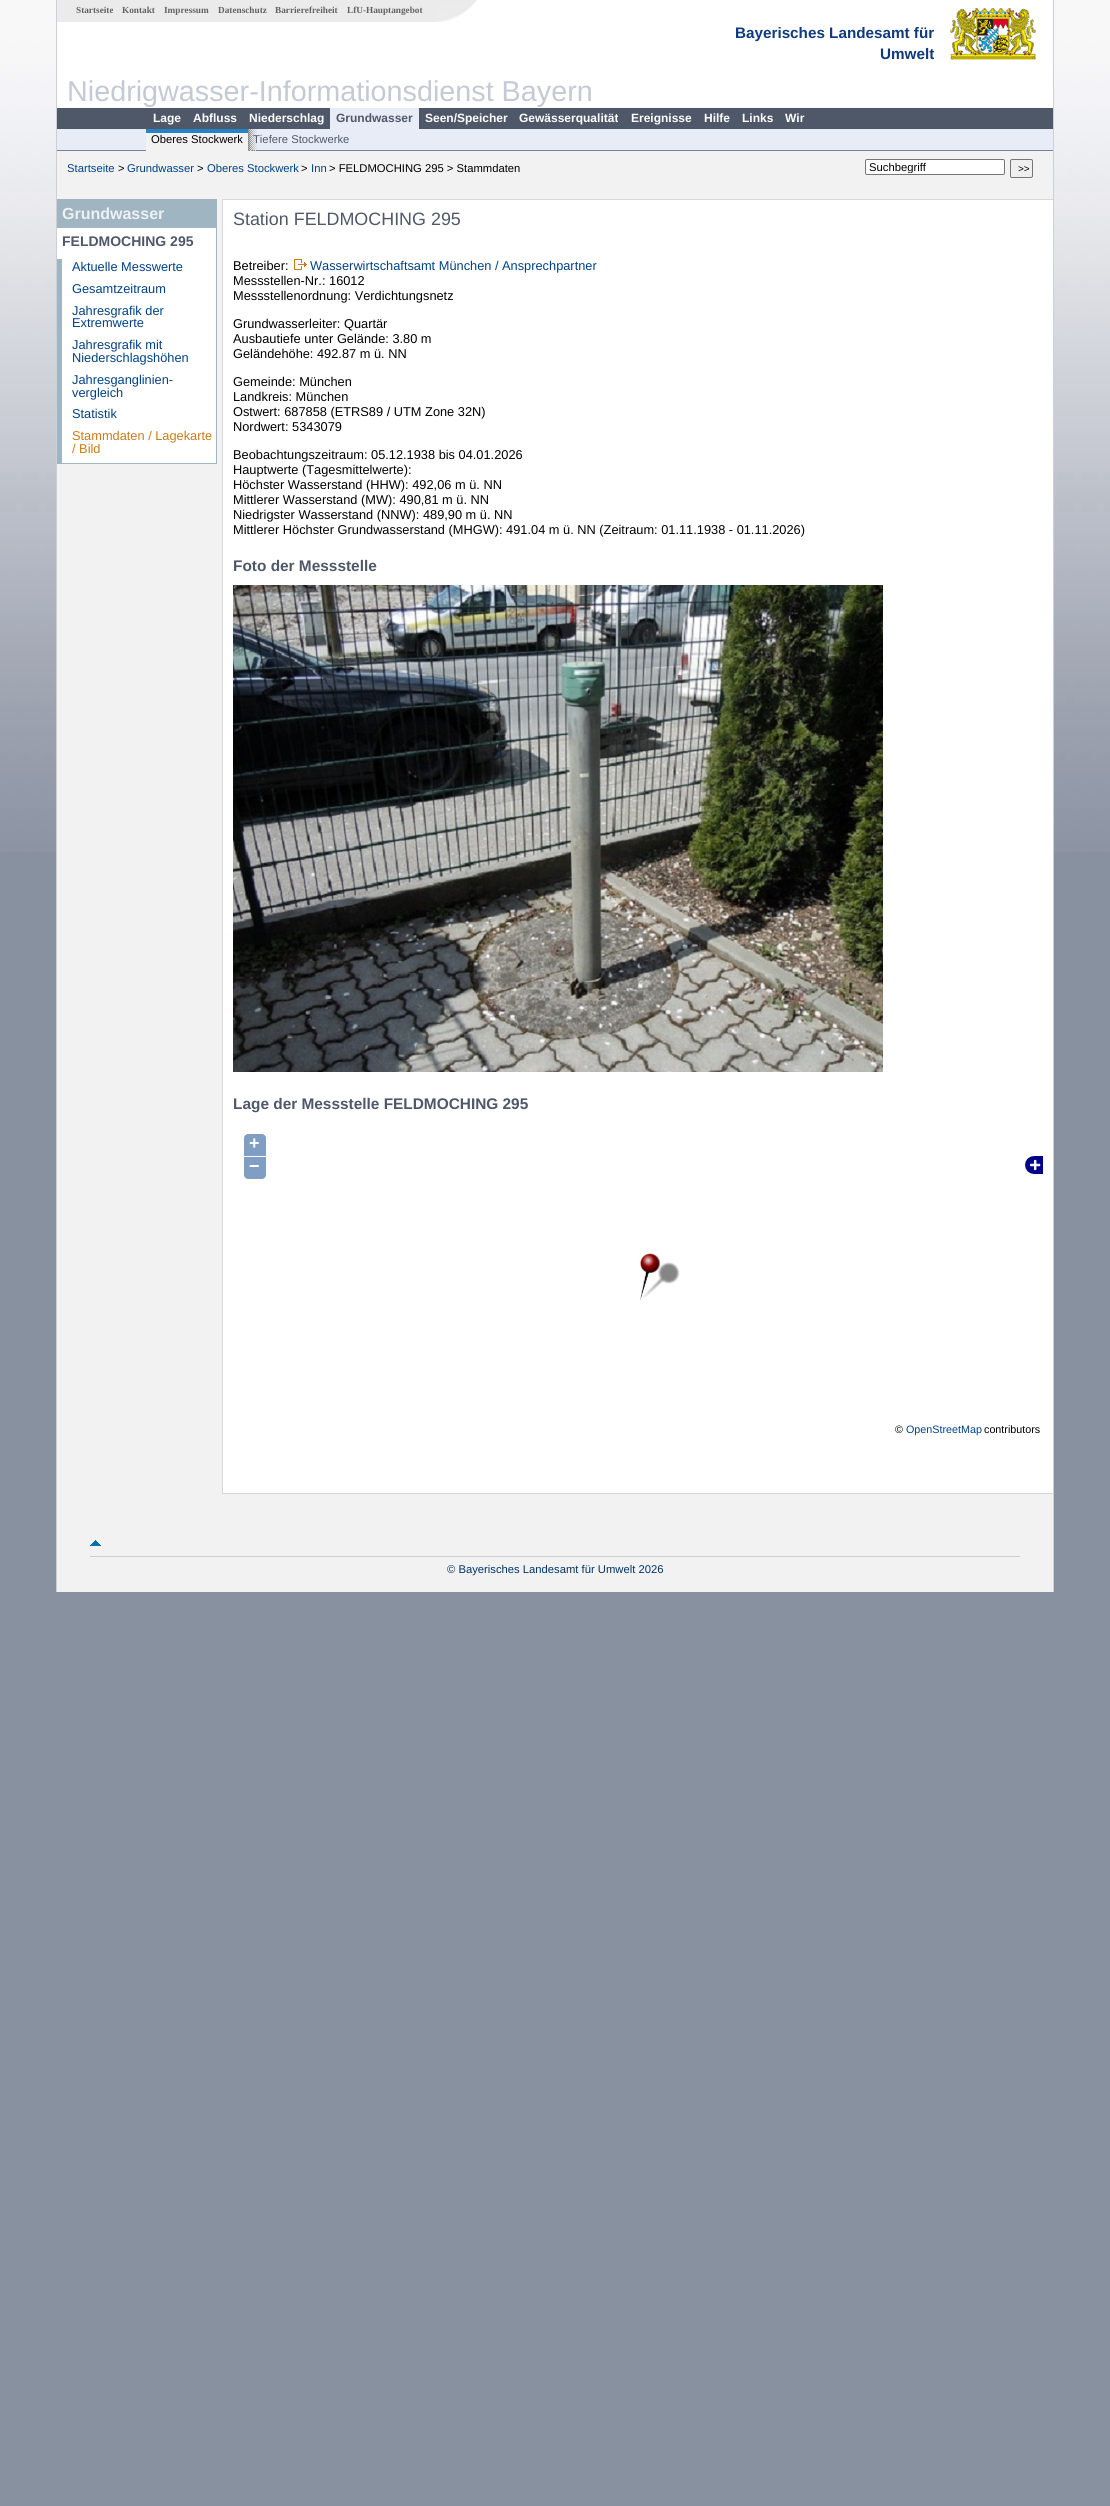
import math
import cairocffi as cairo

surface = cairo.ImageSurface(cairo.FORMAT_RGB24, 1110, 2506)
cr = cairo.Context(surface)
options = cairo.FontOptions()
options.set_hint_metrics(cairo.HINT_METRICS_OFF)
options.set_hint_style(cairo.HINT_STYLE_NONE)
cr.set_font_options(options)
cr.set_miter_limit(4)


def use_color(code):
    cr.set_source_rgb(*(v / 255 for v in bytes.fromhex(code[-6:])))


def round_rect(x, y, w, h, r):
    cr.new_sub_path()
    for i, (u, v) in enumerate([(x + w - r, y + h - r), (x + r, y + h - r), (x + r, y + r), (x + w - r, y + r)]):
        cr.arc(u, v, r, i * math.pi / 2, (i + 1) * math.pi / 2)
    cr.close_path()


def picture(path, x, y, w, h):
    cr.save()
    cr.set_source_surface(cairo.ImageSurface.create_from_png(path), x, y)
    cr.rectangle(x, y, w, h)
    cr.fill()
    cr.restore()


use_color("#8891a0")
cr.paint()
picture("img1.png", 0, 0, 1110, 852)
use_color("#ffffff")
cr.rectangle(57, 0, 996, 108)
cr.fill()
use_color("#cecfd4")
cr.rectangle(1053, 0, 1, 1592)
cr.fill()
cr.rectangle(56, 0, 1, 1592)
cr.fill()
picture("img2.png", 950, 8, 86, 52)
use_color("#ebebeb")
cr.rectangle(57, 0, 380, 22)
cr.fill()
picture("img3.png", 437, 0, 40, 22)
cr.select_font_face("Liberation Serif", cairo.FONT_SLANT_NORMAL, cairo.FONT_WEIGHT_BOLD)
cr.set_font_size(9.25)
use_color("#636363")
cr.move_to(76, 13)
cr.show_text("Startseite")
cr.move_to(122, 13)
cr.show_text("Kontakt")
cr.move_to(164, 13)
cr.show_text("Impressum")
cr.move_to(218, 13)
cr.show_text("Datenschutz")
cr.move_to(275, 13)
cr.show_text("Barrierefreiheit")
cr.move_to(347, 13)
cr.show_text("LfU-Hauptangebot")
cr.select_font_face("Liberation Sans", cairo.FONT_SLANT_NORMAL, cairo.FONT_WEIGHT_BOLD)
cr.set_font_size(15.25)
use_color("#0f3b7c")
cr.move_to(735, 38)
cr.show_text("Bayerisches Landesamt für")
cr.move_to(880, 59)
cr.show_text("Umwelt")
cr.select_font_face("Liberation Sans")
cr.set_font_size(28.75)
use_color("#c3cad4")
cr.move_to(67, 101)
cr.show_text("Niedrigwasser-Informationsdienst Bayern")
use_color("#4f5869")
cr.rectangle(57, 108, 996, 21)
cr.fill()
cr.select_font_face("Liberation Sans", cairo.FONT_SLANT_NORMAL, cairo.FONT_WEIGHT_BOLD)
cr.set_font_size(12)
use_color("#ffffff")
cr.move_to(153, 122)
cr.show_text("Lage")
cr.move_to(193, 122)
cr.show_text("Abfluss")
cr.move_to(249, 122)
cr.show_text("Niederschlag")
use_color("#e7ecf7")
cr.rectangle(330, 108, 89, 21)
cr.fill()
use_color("#4f5869")
cr.move_to(336, 122)
cr.show_text("Grundwasser")
use_color("#ffffff")
cr.move_to(425, 122)
cr.show_text("Seen/Speicher")
cr.move_to(519, 122)
cr.show_text("Gewässerqualität")
cr.move_to(631, 122)
cr.show_text("Ereignisse")
cr.move_to(704, 122)
cr.show_text("Hilfe")
cr.move_to(742, 122)
cr.show_text("Links")
cr.move_to(785, 122)
cr.show_text("Wir")
use_color("#e7ecf7")
cr.rectangle(57, 129, 996, 21)
cr.fill()
use_color("#7a8291")
cr.rectangle(57, 150, 996, 1)
cr.fill()
use_color("#f2f2f2")
cr.rectangle(146, 133, 102, 18)
cr.fill()
use_color("#2484c6")
cr.rectangle(146, 129, 102, 4)
cr.fill()
cr.select_font_face("Liberation Sans")
cr.set_font_size(11.25)
use_color("#000000")
cr.move_to(151, 143)
cr.show_text("Oberes Stockwerk")
picture("img4.png", 248, 129, 9, 22)
use_color("#4f5869")
cr.move_to(253, 143)
cr.show_text("Tiefere Stockwerke")
use_color("#f2f2f2")
cr.rectangle(57, 151, 996, 1441)
cr.fill()
use_color("#004185")
cr.move_to(67, 172)
cr.show_text("Startseite")
use_color("#000000")
cr.move_to(118, 172)
cr.show_text(">")
use_color("#004185")
cr.move_to(127, 172)
cr.show_text("Grundwasser")
use_color("#000000")
cr.move_to(197, 172)
cr.show_text(">")
use_color("#004185")
cr.move_to(207, 172)
cr.show_text("Oberes Stockwerk")
use_color("#000000")
cr.move_to(301, 172)
cr.show_text(">")
use_color("#004185")
cr.move_to(311, 172)
cr.show_text("Inn")
use_color("#000000")
cr.move_to(329, 172)
cr.show_text("> FELDMOCHING 295 > Stammdaten")
use_color("#ffffff")
round_rect(865.5, 159.5, 139, 15, 1.5)
cr.fill_preserve()
use_color("#767676")
cr.set_line_width(1)
cr.stroke()
cr.save()
cr.rectangle(869, 161, 132, 12)
cr.clip()
use_color("#000000")
cr.move_to(869, 171)
cr.show_text("Suchbegriff")
cr.restore()
use_color("#efefef")
round_rect(1010.5, 159.5, 22, 18, 1.5)
cr.fill_preserve()
use_color("#767676")
cr.stroke()
cr.set_font_size(10)
use_color("#000000")
cr.move_to(1018, 172)
cr.show_text(">>")
use_color("#ffffff")
cr.rectangle(57, 228, 159, 235)
cr.fill()
use_color("#9fb5c1")
cr.rectangle(57, 199, 160, 1)
cr.fill()
cr.rectangle(216, 199, 1, 265)
cr.fill()
cr.rectangle(57, 463, 160, 1)
cr.fill()
cr.rectangle(57, 200, 159, 28)
cr.fill()
cr.select_font_face("Liberation Sans", cairo.FONT_SLANT_NORMAL, cairo.FONT_WEIGHT_BOLD)
cr.set_font_size(16)
use_color("#edf1f3")
cr.move_to(62, 219)
cr.show_text("Grundwasser")
cr.set_font_size(14)
use_color("#4f5869")
cr.move_to(62, 246)
cr.show_text("FELDMOCHING 295")
use_color("#9fb5c1")
cr.rectangle(57, 259, 5, 204)
cr.fill()
cr.select_font_face("Liberation Sans")
cr.set_font_size(12.8)
use_color("#004185")
cr.move_to(72, 271)
cr.show_text("Aktuelle Messwerte")
cr.move_to(72, 293)
cr.show_text("Gesamtzeitraum")
cr.move_to(72, 315)
cr.show_text("Jahresgrafik der")
cr.move_to(72, 327)
cr.show_text("Extremwerte")
cr.move_to(72, 349)
cr.show_text("Jahresgrafik mit")
cr.move_to(72, 362)
cr.show_text("Niederschlagshöhen")
cr.move_to(72, 384)
cr.show_text("Jahresganglinien-")
cr.move_to(72, 397)
cr.show_text("vergleich")
cr.move_to(72, 418)
cr.show_text("Statistik")
use_color("#cc7b17")
cr.move_to(72, 440)
cr.show_text("Stammdaten / Lagekarte")
cr.move_to(72, 453)
cr.show_text("/ Bild")
use_color("#ffffff")
cr.rectangle(223, 200, 830, 1293)
cr.fill()
use_color("#d7d7d7")
cr.rectangle(222, 199, 831, 1)
cr.fill()
cr.rectangle(222, 1493, 831, 1)
cr.fill()
cr.rectangle(222, 199, 1, 1295)
cr.fill()
cr.set_font_size(17.9)
use_color("#4f5869")
cr.move_to(233, 225)
cr.show_text("Station FELDMOCHING 295")
cr.set_font_size(12.8)
use_color("#000000")
cr.move_to(233, 270)
cr.show_text("Betreiber:")
picture("img5.png", 294, 259, 13, 11)
use_color("#004185")
cr.move_to(310, 270)
cr.show_text("Wasserwirtschaftsamt München / Ansprechpartner")
use_color("#000000")
cr.move_to(233, 285)
cr.show_text("Messstellen-Nr.: 16012")
cr.move_to(233, 300)
cr.show_text("Messstellenordnung: Verdichtungsnetz")
cr.move_to(233, 328)
cr.show_text("Grundwasserleiter: Quartär")
cr.move_to(233, 343)
cr.show_text("Ausbautiefe unter Gelände: 3.80 m")
cr.move_to(233, 358)
cr.show_text("Geländehöhe: 492.87 m ü. NN")
cr.move_to(233, 386)
cr.show_text("Gemeinde: München")
cr.move_to(233, 401)
cr.show_text("Landkreis: München")
cr.move_to(233, 416)
cr.show_text("Ostwert: 687858 (ETRS89 / UTM Zone 32N)")
cr.move_to(233, 431)
cr.show_text("Nordwert: 5343079")
cr.move_to(233, 459)
cr.show_text("Beobachtungszeitraum: 05.12.1938 bis 04.01.2026")
cr.move_to(233, 474)
cr.show_text("Hauptwerte (Tagesmittelwerte):")
cr.move_to(233, 489)
cr.show_text("Höchster Wasserstand (HHW): 492,06 m ü. NN")
cr.move_to(233, 504)
cr.show_text("Mittlerer Wasserstand (MW): 490,81 m ü. NN")
cr.move_to(233, 519)
cr.show_text("Niedrigster Wasserstand (NNW): 489,90 m ü. NN")
cr.move_to(233, 534)
cr.show_text("Mittlerer Höchster Grundwasserstand (MHGW): 491.04 m ü. NN (Zeitraum: 01.11.1938 - 01.11.2026)")
cr.select_font_face("Liberation Sans", cairo.FONT_SLANT_NORMAL, cairo.FONT_WEIGHT_BOLD)
cr.set_font_size(15.4)
use_color("#4f5869")
cr.move_to(233, 571)
cr.show_text("Foto der Messstelle")
picture("img6.png", 233, 585, 650, 487)
cr.move_to(233, 1109)
cr.show_text("Lage der Messstelle FELDMOCHING 295")
use_color("#809ec4")
cr.new_path()
cr.move_to(248, 1134)
cr.line_to(262, 1134)
cr.curve_to(264, 1134, 266, 1136, 266, 1138)
cr.line_to(266, 1156)
cr.line_to(244, 1156)
cr.line_to(244, 1138)
cr.curve_to(244, 1136, 246, 1134, 248, 1134)
cr.close_path()
cr.fill()
cr.set_font_size(18)
use_color("#ffffff")
cr.move_to(249, 1149)
cr.show_text("+")
use_color("#809ec4")
cr.new_path()
cr.move_to(244, 1157)
cr.line_to(266, 1157)
cr.line_to(266, 1175)
cr.curve_to(266, 1177, 264, 1179, 262, 1179)
cr.line_to(248, 1179)
cr.curve_to(246, 1179, 244, 1177, 244, 1175)
cr.close_path()
cr.fill()
use_color("#ffffff")
cr.move_to(249, 1172)
cr.show_text("−")
picture("img7.png", 1025, 1156, 18, 18)
picture("img8.png", 640, 1253, 40, 48)
cr.select_font_face("Liberation Sans")
cr.set_font_size(10.75)
use_color("#000000")
cr.move_to(895, 1433)
cr.show_text("©")
use_color("#004185")
cr.move_to(906, 1433)
cr.show_text("OpenStreetMap")
use_color("#000000")
cr.move_to(984, 1433)
cr.show_text("contributors")
picture("img9.png", 90, 1540, 11, 6)
use_color("#cccccc")
cr.rectangle(90, 1556, 930, 1)
cr.fill()
cr.set_font_size(11.25)
use_color("#003366")
cr.move_to(447, 1573)
cr.show_text("© Bayerisches Landesamt für Umwelt 2026")
surface.write_to_png("result.png")
